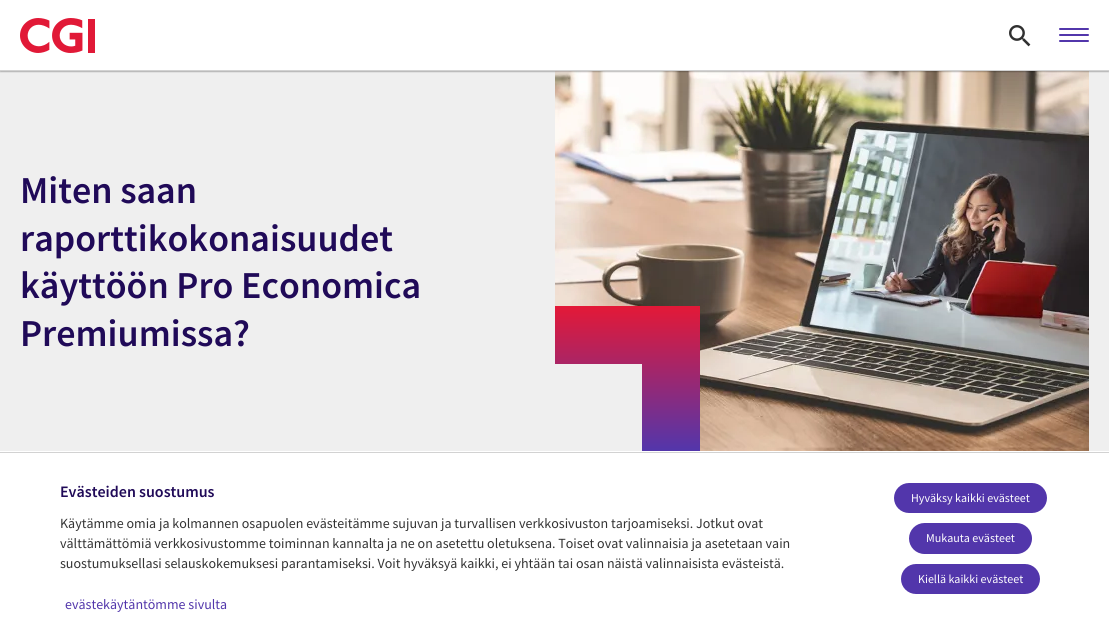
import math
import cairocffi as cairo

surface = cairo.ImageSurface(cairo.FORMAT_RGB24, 1109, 624)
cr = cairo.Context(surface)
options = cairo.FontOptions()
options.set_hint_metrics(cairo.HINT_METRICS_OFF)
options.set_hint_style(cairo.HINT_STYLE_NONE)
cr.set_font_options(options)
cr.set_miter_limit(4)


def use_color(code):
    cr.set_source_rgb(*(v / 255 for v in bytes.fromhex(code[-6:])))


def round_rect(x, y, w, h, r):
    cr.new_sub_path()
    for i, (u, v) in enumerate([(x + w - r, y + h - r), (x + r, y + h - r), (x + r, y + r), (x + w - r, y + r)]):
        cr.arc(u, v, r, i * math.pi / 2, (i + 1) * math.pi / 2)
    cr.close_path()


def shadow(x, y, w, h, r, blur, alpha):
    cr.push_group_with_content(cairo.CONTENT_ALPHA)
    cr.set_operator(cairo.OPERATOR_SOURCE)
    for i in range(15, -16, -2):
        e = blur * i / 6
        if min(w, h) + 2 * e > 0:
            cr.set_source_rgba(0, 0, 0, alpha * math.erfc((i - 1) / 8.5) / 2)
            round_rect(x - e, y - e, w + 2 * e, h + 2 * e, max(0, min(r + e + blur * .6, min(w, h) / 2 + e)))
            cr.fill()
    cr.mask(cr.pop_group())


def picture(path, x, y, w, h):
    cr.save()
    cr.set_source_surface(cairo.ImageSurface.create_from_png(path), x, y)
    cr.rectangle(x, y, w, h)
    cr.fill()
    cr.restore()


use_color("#ffffff")
cr.paint()
use_color("#efefef")
cr.rectangle(0, 71, 1109, 380)
cr.fill()
picture("img3.png", 555, 71, 534, 380)
cr.save()
cr.rectangle(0, 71, 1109, 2)
cr.clip()
use_color("#000000")
shadow(0, 1, 1109, 71, 0, 0.5, 0.25)
cr.restore()
use_color("#d2d2d2")
cr.rectangle(0, 70, 1109, 1)
cr.fill()
picture("img1.png", 20, 18, 75, 35)
picture("img2.png", 1009, 25, 22, 22)
use_color("#5236ab")
round_rect(1059, 40, 30, 2, 1)
cr.fill()
round_rect(1059, 28, 30, 2, 1)
cr.fill()
round_rect(1059, 34, 30, 2, 1)
cr.fill()
cr.select_font_face("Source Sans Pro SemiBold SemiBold")
cr.set_font_size(38)
use_color("#200a58")
cr.move_to(20, 203)
cr.show_text("Miten saan")
cr.move_to(20, 251)
cr.show_text("raporttikokonaisuudet")
cr.move_to(20, 298)
cr.show_text("käyttöön Pro Economica")
cr.move_to(20, 346)
cr.show_text("Premiumissa?")
gradient = cairo.LinearGradient(628, 451, 628, 306)
gradient.add_color_stop_rgba(0, 0.322, 0.212, 0.671, 1)
gradient.add_color_stop_rgba(1, 0.894, 0.098, 0.216, 1)
cr.set_source(gradient)
cr.rectangle(555, 306, 145, 145)
cr.fill()
use_color("#efefef")
cr.rectangle(555, 364, 87, 87)
cr.fill()
use_color("#d2d2d2")
cr.rectangle(0, 452, 1109, 1)
cr.fill()
cr.set_font_size(16)
use_color("#200a58")
cr.move_to(60, 497)
cr.show_text("Evästeiden suostumus")
cr.select_font_face("Source Sans Pro")
cr.set_font_size(14)
use_color("#333333")
cr.move_to(60, 528)
cr.show_text("Käytämme omia ja kolmannen osapuolen evästeitämme sujuvan ja turvallisen verkkosivuston tarjoamiseksi. Jotkut ovat")
cr.move_to(60, 548)
cr.show_text("välttämättömiä verkkosivustomme toiminnan kannalta ja ne on asetettu oletuksena. Toiset ovat valinnaisia ja asetetaan vain")
cr.move_to(60, 568)
cr.show_text("suostumuksellasi selauskokemuksesi parantamiseksi. Voit hyväksyä kaikki, ei yhtään tai osan näistä valinnaisista evästeistä.")
use_color("#5236ab")
round_rect(895, 484, 151, 28, 14)
cr.fill_preserve()
cr.stroke()
cr.set_font_size(12)
use_color("#ffffff")
cr.move_to(911, 502)
cr.show_text("Hyväksy kaikki evästeet")
use_color("#5236ab")
round_rect(910, 524, 121, 29, 14.5)
cr.fill_preserve()
cr.stroke()
use_color("#ffffff")
cr.move_to(926, 542)
cr.show_text("Mukauta evästeet")
use_color("#5236ab")
round_rect(902, 565, 137, 28, 14)
cr.fill_preserve()
cr.stroke()
use_color("#ffffff")
cr.move_to(918, 583)
cr.show_text("Kiellä kaikki evästeet")
cr.set_font_size(14)
use_color("#5236ab")
cr.move_to(65, 609)
cr.show_text("evästekäytäntömme sivulta")
surface.write_to_png("result.png")
